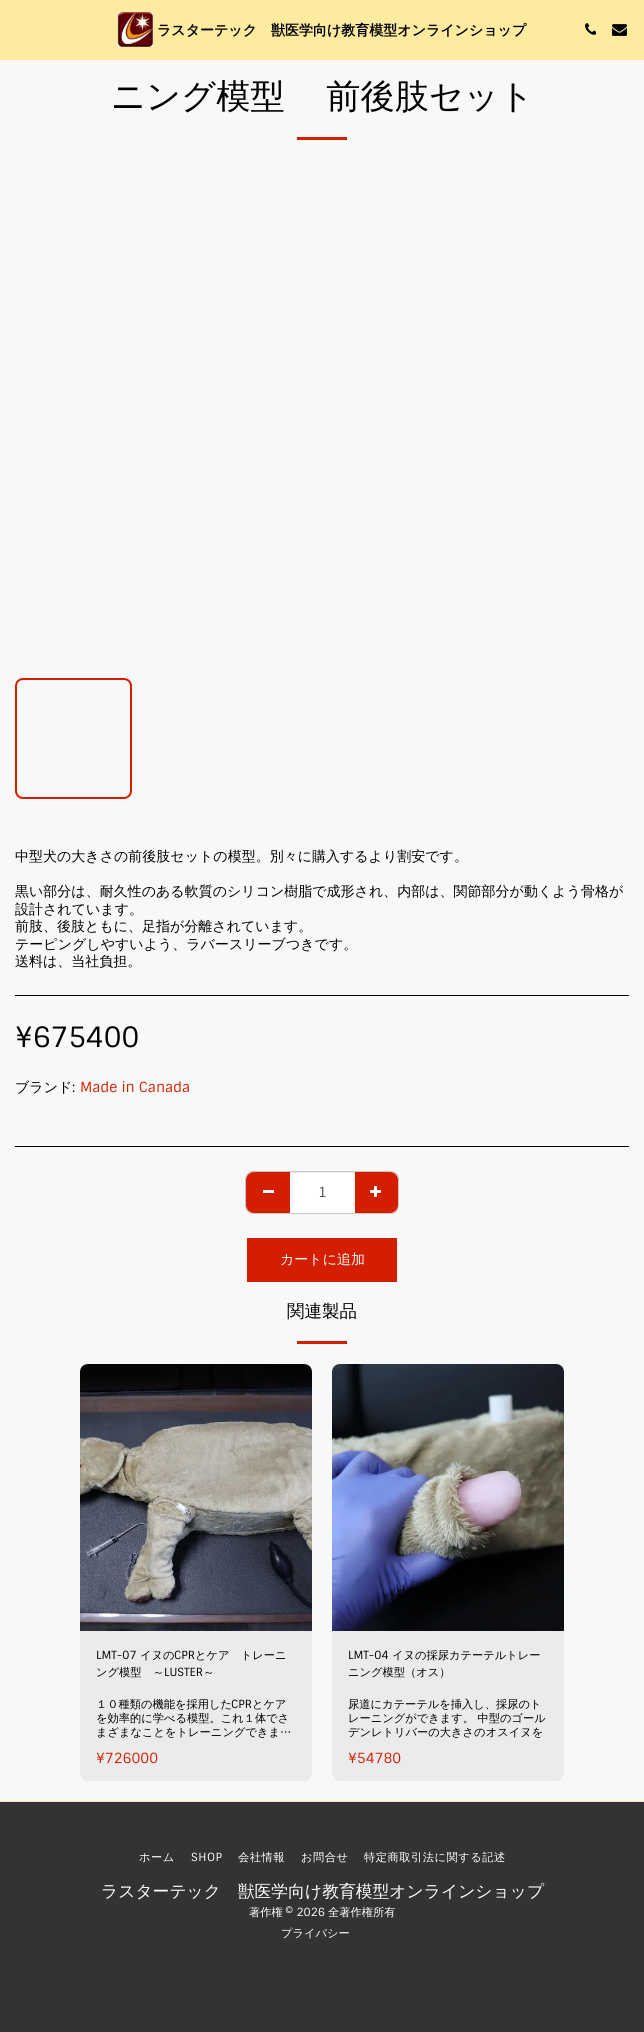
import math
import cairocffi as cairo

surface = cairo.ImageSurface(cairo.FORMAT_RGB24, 644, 2032)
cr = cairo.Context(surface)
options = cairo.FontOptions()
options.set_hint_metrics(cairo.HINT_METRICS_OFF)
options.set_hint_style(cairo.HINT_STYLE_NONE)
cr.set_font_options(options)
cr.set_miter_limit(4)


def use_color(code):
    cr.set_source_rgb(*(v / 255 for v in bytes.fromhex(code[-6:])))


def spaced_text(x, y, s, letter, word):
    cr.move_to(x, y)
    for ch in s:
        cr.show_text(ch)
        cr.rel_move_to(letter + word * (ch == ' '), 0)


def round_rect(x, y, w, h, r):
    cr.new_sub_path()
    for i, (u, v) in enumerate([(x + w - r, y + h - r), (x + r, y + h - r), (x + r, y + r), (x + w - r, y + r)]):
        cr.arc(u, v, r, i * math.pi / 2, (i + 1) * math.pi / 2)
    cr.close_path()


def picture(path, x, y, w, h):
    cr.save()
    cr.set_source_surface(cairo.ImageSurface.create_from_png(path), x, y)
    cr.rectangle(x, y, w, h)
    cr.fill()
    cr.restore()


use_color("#f7f9f8")
cr.paint()
use_color("#feeba0")
cr.rectangle(0, 0, 644, 60)
cr.fill()
picture("img1.png", 117, 12, 36, 35)
cr.select_font_face("WenQuanYi Zen Hei", cairo.FONT_SLANT_NORMAL, cairo.FONT_WEIGHT_BOLD)
cr.set_font_size(14)
use_color("#000000")
cr.move_to(157, 35)
cr.show_text("ラスターテック　獣医学向け教育模型オンラインショップ")
picture("img2.png", 585, 23, 11, 12)
picture("img3.png", 612, 24, 15, 12)
cr.select_font_face("WenQuanYi Zen Hei Medium")
cr.set_font_size(34.25)
spaced_text(111, 108, "ニング模型 　前後肢セット", 0, -3)
use_color("#d41e00")
cr.rectangle(297, 137, 50, 3)
cr.fill()
round_rect(16, 679, 115, 119, 7)
cr.stroke()
cr.set_font_size(14)
use_color("#000000")
cr.move_to(15, 861)
cr.show_text("中型犬の大きさの前後肢セットの模型。別々に購入するより割安です。")
cr.move_to(15, 896)
cr.show_text("黒い部分は、耐久性のある軟質のシリコン樹脂で成形され、内部は、関節部分が動くよう骨格が")
cr.move_to(15, 914)
cr.show_text("設計されています。")
cr.move_to(15, 931)
cr.show_text("前肢、後肢ともに、足指が分離されています。")
cr.move_to(15, 949)
cr.show_text("テーピングしやすいよう、ラバースリーブつきです。")
cr.move_to(15, 966)
cr.show_text("送料は、当社負担。")
cr.rectangle(15, 995, 614, 1)
cr.fill()
cr.select_font_face("Sintony")
cr.set_font_size(28)
cr.move_to(15, 1047)
cr.show_text("¥675400")
cr.select_font_face("WenQuanYi Zen Hei Medium")
cr.set_font_size(14)
cr.move_to(15, 1092)
cr.show_text("ブランド")
cr.select_font_face("Sintony")
cr.move_to(72, 1092)
cr.show_text(":")
use_color("#d41e00")
cr.move_to(80, 1092)
cr.show_text("Made in Canada")
use_color("#000000")
cr.rectangle(15, 1146, 614, 1)
cr.fill()
round_rect(245.5, 1171.5, 153, 42, 7.5)
use_color("#c6c7c6")
cr.set_line_width(1)
cr.stroke()
use_color("#d41e00")
cr.new_path()
cr.move_to(254, 1172)
cr.line_to(291, 1172)
cr.line_to(291, 1213)
cr.line_to(254, 1213)
cr.curve_to(249.5, 1213, 246, 1209.5, 246, 1205)
cr.line_to(246, 1180)
cr.curve_to(246, 1175.5, 249.5, 1172, 254, 1172)
cr.close_path()
cr.fill()
use_color("#ffffff")
cr.rectangle(263, 1190, 11, 3)
cr.fill()
use_color("#d41e00")
cr.new_path()
cr.move_to(354, 1172)
cr.line_to(390, 1172)
cr.curve_to(394.5, 1172, 398, 1175.5, 398, 1180)
cr.line_to(398, 1205)
cr.curve_to(398, 1209.5, 394.5, 1213, 390, 1213)
cr.line_to(354, 1213)
cr.close_path()
cr.fill()
use_color("#ffffff")
cr.rectangle(290, 1173, 65, 40)
cr.fill()
use_color("#ececec")
cr.rectangle(290, 1172, 65, 1)
cr.fill()
use_color("#555555")
cr.move_to(318, 1197)
cr.show_text("1")
picture("img4.png", 370, 1186, 11, 11)
use_color("#d41e00")
cr.rectangle(247, 1238, 150, 44)
cr.fill()
cr.select_font_face("WenQuanYi Zen Hei Medium")
use_color("#ffffff")
cr.move_to(280, 1264)
cr.show_text("カートに追加")
cr.set_font_size(17.5)
use_color("#000000")
cr.move_to(287, 1317)
cr.show_text("関連製品")
use_color("#d41e00")
cr.rectangle(297, 1341, 50, 3)
cr.fill()
use_color("#ebebeb")
round_rect(80, 1364, 232, 417, 8)
cr.fill()
picture("img5.png", 80, 1364, 232, 267)
cr.select_font_face("Sintony")
cr.set_font_size(11.25)
use_color("#000000")
cr.move_to(96, 1659)
cr.show_text("LMT-07")
cr.select_font_face("WenQuanYi Zen Hei Medium")
cr.move_to(140, 1659)
cr.show_text("イヌの")
cr.select_font_face("Sintony")
cr.move_to(174, 1659)
cr.show_text("CPR")
cr.select_font_face("WenQuanYi Zen Hei Medium")
cr.move_to(195, 1659)
cr.show_text("とケア　トレーニ")
cr.move_to(96, 1676)
cr.show_text("ング模型　～")
cr.select_font_face("Sintony")
cr.move_to(164, 1676)
cr.show_text("LUSTER")
cr.select_font_face("WenQuanYi Zen Hei Medium")
cr.move_to(203, 1676)
cr.show_text("～")
cr.move_to(96, 1708)
cr.show_text("１０種類の機能を採用した")
cr.select_font_face("Sintony")
cr.move_to(231, 1708)
cr.show_text("CPR")
cr.select_font_face("WenQuanYi Zen Hei Medium")
cr.move_to(252, 1708)
cr.show_text("とケア")
cr.move_to(96, 1722)
cr.show_text("を効率的に学べる模型。これ１体でさ")
cr.move_to(96, 1736)
cr.show_text("まざまなことをトレーニングできま…")
cr.select_font_face("Sintony")
cr.set_font_size(14)
use_color("#d41e00")
cr.move_to(96, 1763)
cr.show_text("¥726000")
use_color("#ebebeb")
round_rect(332, 1364, 232, 417, 8)
cr.fill()
picture("img6.png", 332, 1364, 232, 267)
cr.set_font_size(11.25)
use_color("#000000")
cr.move_to(348, 1659)
cr.show_text("LMT-04")
cr.select_font_face("WenQuanYi Zen Hei Medium")
cr.move_to(392, 1659)
cr.show_text("イヌの採尿カテーテルトレー")
cr.move_to(348, 1676)
cr.show_text("ニング模型（オス）")
cr.move_to(348, 1708)
cr.show_text("尿道にカテーテルを挿入し、採尿のト")
cr.move_to(348, 1722)
cr.show_text("レーニングができます。 中型のゴール")
cr.move_to(348, 1736)
cr.show_text("デンレトリバーの大きさのオスイヌを")
cr.select_font_face("Sintony")
cr.set_font_size(14)
use_color("#d41e00")
cr.move_to(348, 1763)
cr.show_text("¥54780")
use_color("#333333")
cr.rectangle(0, 1802, 644, 230)
cr.fill()
use_color("#feeba0")
cr.rectangle(0, 1801, 644, 1)
cr.fill()
cr.select_font_face("WenQuanYi Zen Hei Medium")
cr.set_font_size(11.25)
use_color("#ffffff")
spaced_text(139, 1861, "ホーム", 0.5, 0)
cr.select_font_face("Sintony")
spaced_text(191, 1861, "SHOP", 0.5, 0)
cr.select_font_face("WenQuanYi Zen Hei Medium")
spaced_text(238, 1861, "会社情報", 0.5, 0)
spaced_text(301, 1861, "お問合せ", 0.5, 0)
spaced_text(364, 1861, "特定商取引法に関する記述", 0.5, 0)
cr.set_font_size(16.8)
cr.move_to(101, 1897)
cr.show_text("ラスターテック　獣医学向け教育模型オンラインショップ")
cr.set_font_size(11.25)
cr.move_to(249, 1916)
cr.show_text("著作権")
cr.select_font_face("Sintony")
cr.move_to(285, 1916)
cr.show_text("© 2026")
cr.select_font_face("WenQuanYi Zen Hei Medium")
cr.move_to(328, 1916)
cr.show_text("全著作権所有")
cr.move_to(281, 1937)
cr.show_text("プライバシー")
surface.write_to_png("result.png")
